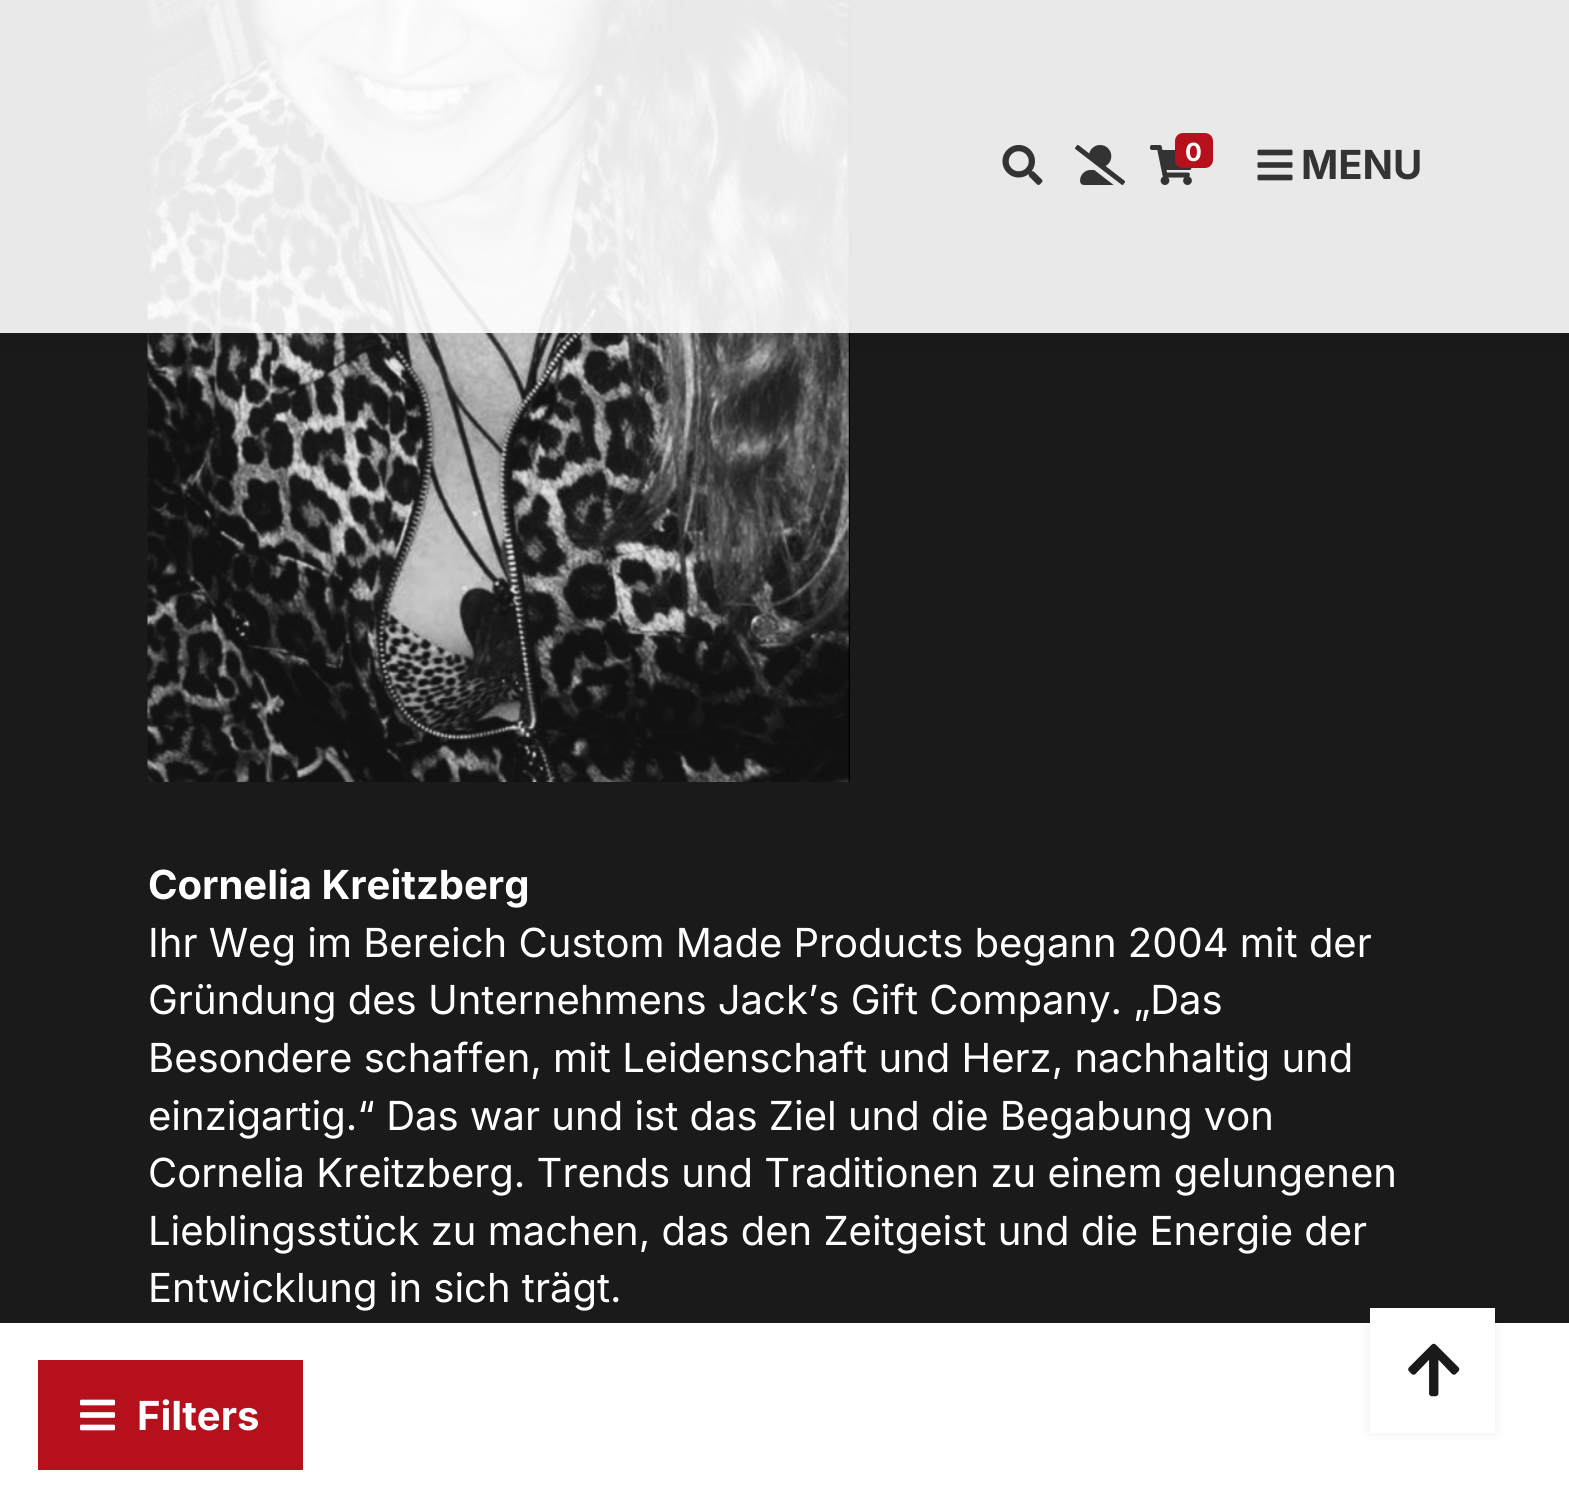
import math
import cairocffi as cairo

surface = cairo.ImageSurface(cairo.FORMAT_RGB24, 1569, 1506)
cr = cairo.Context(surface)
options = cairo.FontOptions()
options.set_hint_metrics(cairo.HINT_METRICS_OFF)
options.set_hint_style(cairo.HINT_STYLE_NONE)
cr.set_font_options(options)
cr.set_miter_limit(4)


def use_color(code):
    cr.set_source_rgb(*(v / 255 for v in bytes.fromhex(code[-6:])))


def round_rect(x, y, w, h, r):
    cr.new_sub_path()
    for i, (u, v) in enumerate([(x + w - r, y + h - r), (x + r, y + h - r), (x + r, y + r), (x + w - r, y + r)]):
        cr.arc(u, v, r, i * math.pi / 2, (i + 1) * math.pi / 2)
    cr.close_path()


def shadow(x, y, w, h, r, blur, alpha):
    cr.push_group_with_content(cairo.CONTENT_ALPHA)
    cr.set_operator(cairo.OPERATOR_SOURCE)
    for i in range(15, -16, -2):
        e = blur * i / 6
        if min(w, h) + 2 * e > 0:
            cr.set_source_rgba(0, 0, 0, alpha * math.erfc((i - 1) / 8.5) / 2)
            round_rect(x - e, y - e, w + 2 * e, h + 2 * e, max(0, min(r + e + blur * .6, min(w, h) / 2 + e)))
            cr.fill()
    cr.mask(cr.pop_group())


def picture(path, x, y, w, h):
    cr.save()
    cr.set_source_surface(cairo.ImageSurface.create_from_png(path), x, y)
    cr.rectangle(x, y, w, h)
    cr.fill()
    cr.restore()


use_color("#1a1a1a")
cr.paint()
picture("img5.png", 147, 0, 703, 782)
cr.save()
cr.set_fill_rule(cairo.FILL_RULE_EVEN_ODD)
cr.new_path()
cr.move_to(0, 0)
cr.line_to(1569, 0)
cr.line_to(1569, 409)
cr.line_to(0, 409)
cr.close_path()
cr.move_to(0, 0)
cr.line_to(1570, 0)
cr.line_to(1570, 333)
cr.line_to(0, 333)
cr.close_path()
cr.clip()
use_color("#000000")
shadow(0, 0, 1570, 333, 0, 25, 0.1)
cr.restore()
cr.set_source_rgba(1, 1, 1, 0.9)
cr.rectangle(0, 0, 1569, 333)
cr.fill()
picture("img1.png", 1002, 145, 41, 40)
picture("img2.png", 1075, 144, 51, 41)
picture("img3.png", 1150, 145, 42, 40)
use_color("#b6101d")
round_rect(1175, 133, 38, 35, 8)
cr.fill()
cr.select_font_face("Inter", cairo.FONT_SLANT_NORMAL, cairo.FONT_WEIGHT_BOLD)
cr.set_font_size(25)
use_color("#ffffff")
cr.move_to(1185, 161)
cr.show_text("0")
picture("img4.png", 1257, 149, 36, 32)
cr.set_font_size(40)
use_color("#333333")
cr.move_to(1301, 179)
cr.show_text("MENU")
use_color("#ffffff")
cr.move_to(148, 899)
cr.show_text("Cornelia Kreitzberg")
cr.select_font_face("Inter")
cr.move_to(148, 957)
cr.show_text("Ihr Weg im Bereich Custom Made Products begann 2004 mit der")
cr.move_to(148, 1014)
cr.show_text("Gründung des Unternehmens Jack’s Gift Company. „Das")
cr.move_to(148, 1072)
cr.show_text("Besondere schaffen, mit Leidenschaft und Herz, nachhaltig und")
cr.move_to(148, 1130)
cr.show_text("einzigartig.“ Das war und ist das Ziel und die Begabung von")
cr.move_to(148, 1187)
cr.show_text("Cornelia Kreitzberg. Trends und Traditionen zu einem gelungenen")
cr.move_to(148, 1245)
cr.show_text("Lieblingsstück zu machen, das den Zeitgeist und die Energie der")
cr.move_to(148, 1302)
cr.show_text("Entwicklung in sich trägt.")
cr.rectangle(0, 1323, 1569, 183)
cr.fill()
use_color("#000000")
shadow(1370, 1308, 125, 125, 0, 6, 0.07)
use_color("#ffffff")
cr.rectangle(1370, 1308, 125, 125)
cr.fill()
picture("img6.png", 1408, 1343, 52, 54)
use_color("#b6101d")
cr.rectangle(38, 1360, 265, 110)
cr.fill()
picture("img7.png", 80, 1399, 35, 32)
cr.select_font_face("Inter", cairo.FONT_SLANT_NORMAL, cairo.FONT_WEIGHT_BOLD)
use_color("#ffffff")
cr.move_to(137, 1430)
cr.show_text("Filters")
surface.write_to_png("result.png")
